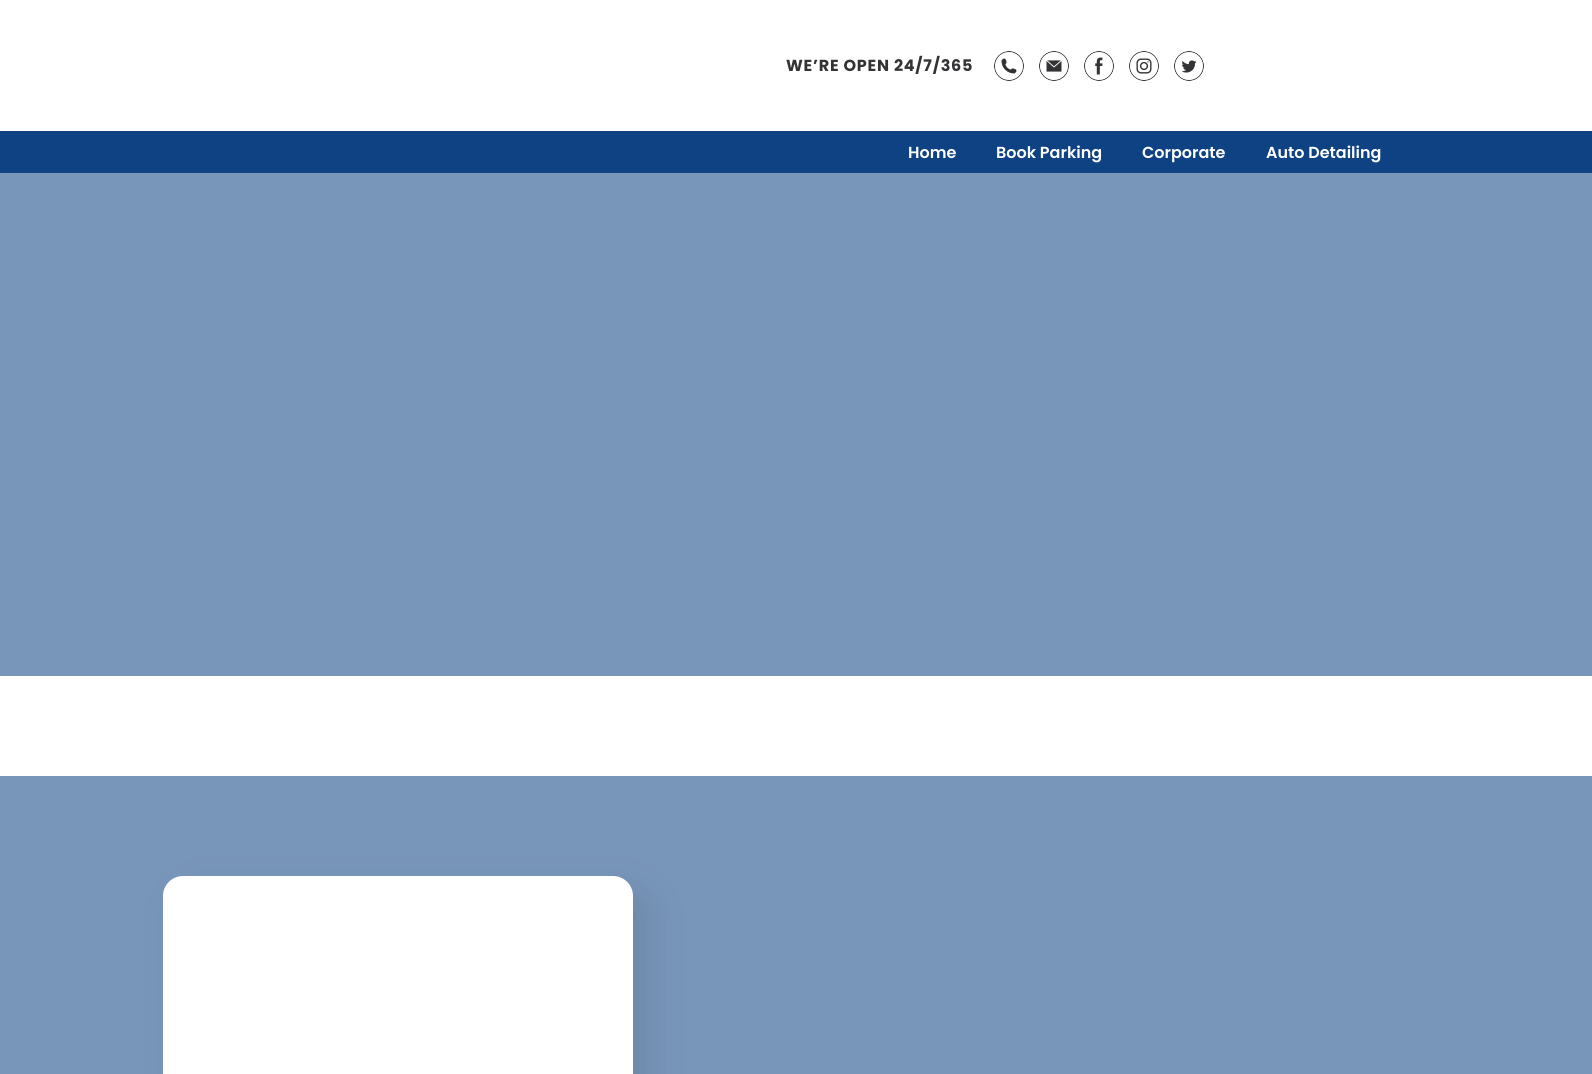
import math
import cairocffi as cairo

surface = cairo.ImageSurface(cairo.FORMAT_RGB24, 1592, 1074)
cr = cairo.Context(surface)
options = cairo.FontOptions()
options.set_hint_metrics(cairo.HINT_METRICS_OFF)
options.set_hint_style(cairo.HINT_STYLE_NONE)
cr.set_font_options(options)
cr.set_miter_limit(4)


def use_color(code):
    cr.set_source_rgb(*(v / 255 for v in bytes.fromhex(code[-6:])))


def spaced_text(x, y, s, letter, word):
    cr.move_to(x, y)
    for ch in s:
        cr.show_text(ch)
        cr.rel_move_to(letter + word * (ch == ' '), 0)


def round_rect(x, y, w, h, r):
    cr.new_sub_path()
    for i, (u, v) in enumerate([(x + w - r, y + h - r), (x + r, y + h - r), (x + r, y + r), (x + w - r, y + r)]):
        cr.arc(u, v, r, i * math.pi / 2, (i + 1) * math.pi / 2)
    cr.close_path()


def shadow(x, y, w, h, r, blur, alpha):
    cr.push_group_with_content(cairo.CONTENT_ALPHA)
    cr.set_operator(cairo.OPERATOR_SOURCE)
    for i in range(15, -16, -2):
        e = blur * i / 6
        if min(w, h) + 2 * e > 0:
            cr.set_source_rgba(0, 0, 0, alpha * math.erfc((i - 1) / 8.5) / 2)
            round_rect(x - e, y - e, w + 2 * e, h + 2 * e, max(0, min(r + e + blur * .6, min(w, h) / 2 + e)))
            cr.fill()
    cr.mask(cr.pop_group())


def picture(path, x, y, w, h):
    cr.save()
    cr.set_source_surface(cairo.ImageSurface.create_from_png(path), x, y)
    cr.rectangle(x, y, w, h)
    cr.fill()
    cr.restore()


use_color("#ffffff")
cr.paint()
cr.select_font_face("Poppins", cairo.FONT_SLANT_NORMAL, cairo.FONT_WEIGHT_BOLD)
cr.set_font_size(16)
use_color("#333235")
spaced_text(786, 71, "WE’RE OPEN 24/7/365", 0.75, 0)
picture("img1.png", 994, 51, 30, 30)
picture("img2.png", 1039, 51, 30, 30)
picture("img3.png", 1084, 51, 30, 30)
picture("img4.png", 1129, 51, 30, 30)
picture("img5.png", 1174, 51, 30, 30)
use_color("#0e4283")
cr.rectangle(0, 131, 1592, 42)
cr.fill()
cr.select_font_face("Poppins SemiBold")
use_color("#ffffff")
cr.move_to(908, 158)
cr.show_text("Home")
cr.move_to(996, 158)
cr.show_text("Book Parking")
cr.move_to(1142, 158)
cr.show_text("Corporate")
cr.move_to(1266, 158)
cr.show_text("Auto Detailing")
use_color("#7896ba")
cr.rectangle(0, 173, 1592, 503)
cr.fill()
cr.rectangle(0, 776, 1592, 298)
cr.fill()
use_color("#000000")
shadow(179, 892, 470, 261, 20, 19.5, 0.1)
use_color("#ffffff")
round_rect(163, 876, 470, 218, 20)
cr.fill()
surface.write_to_png("result.png")
